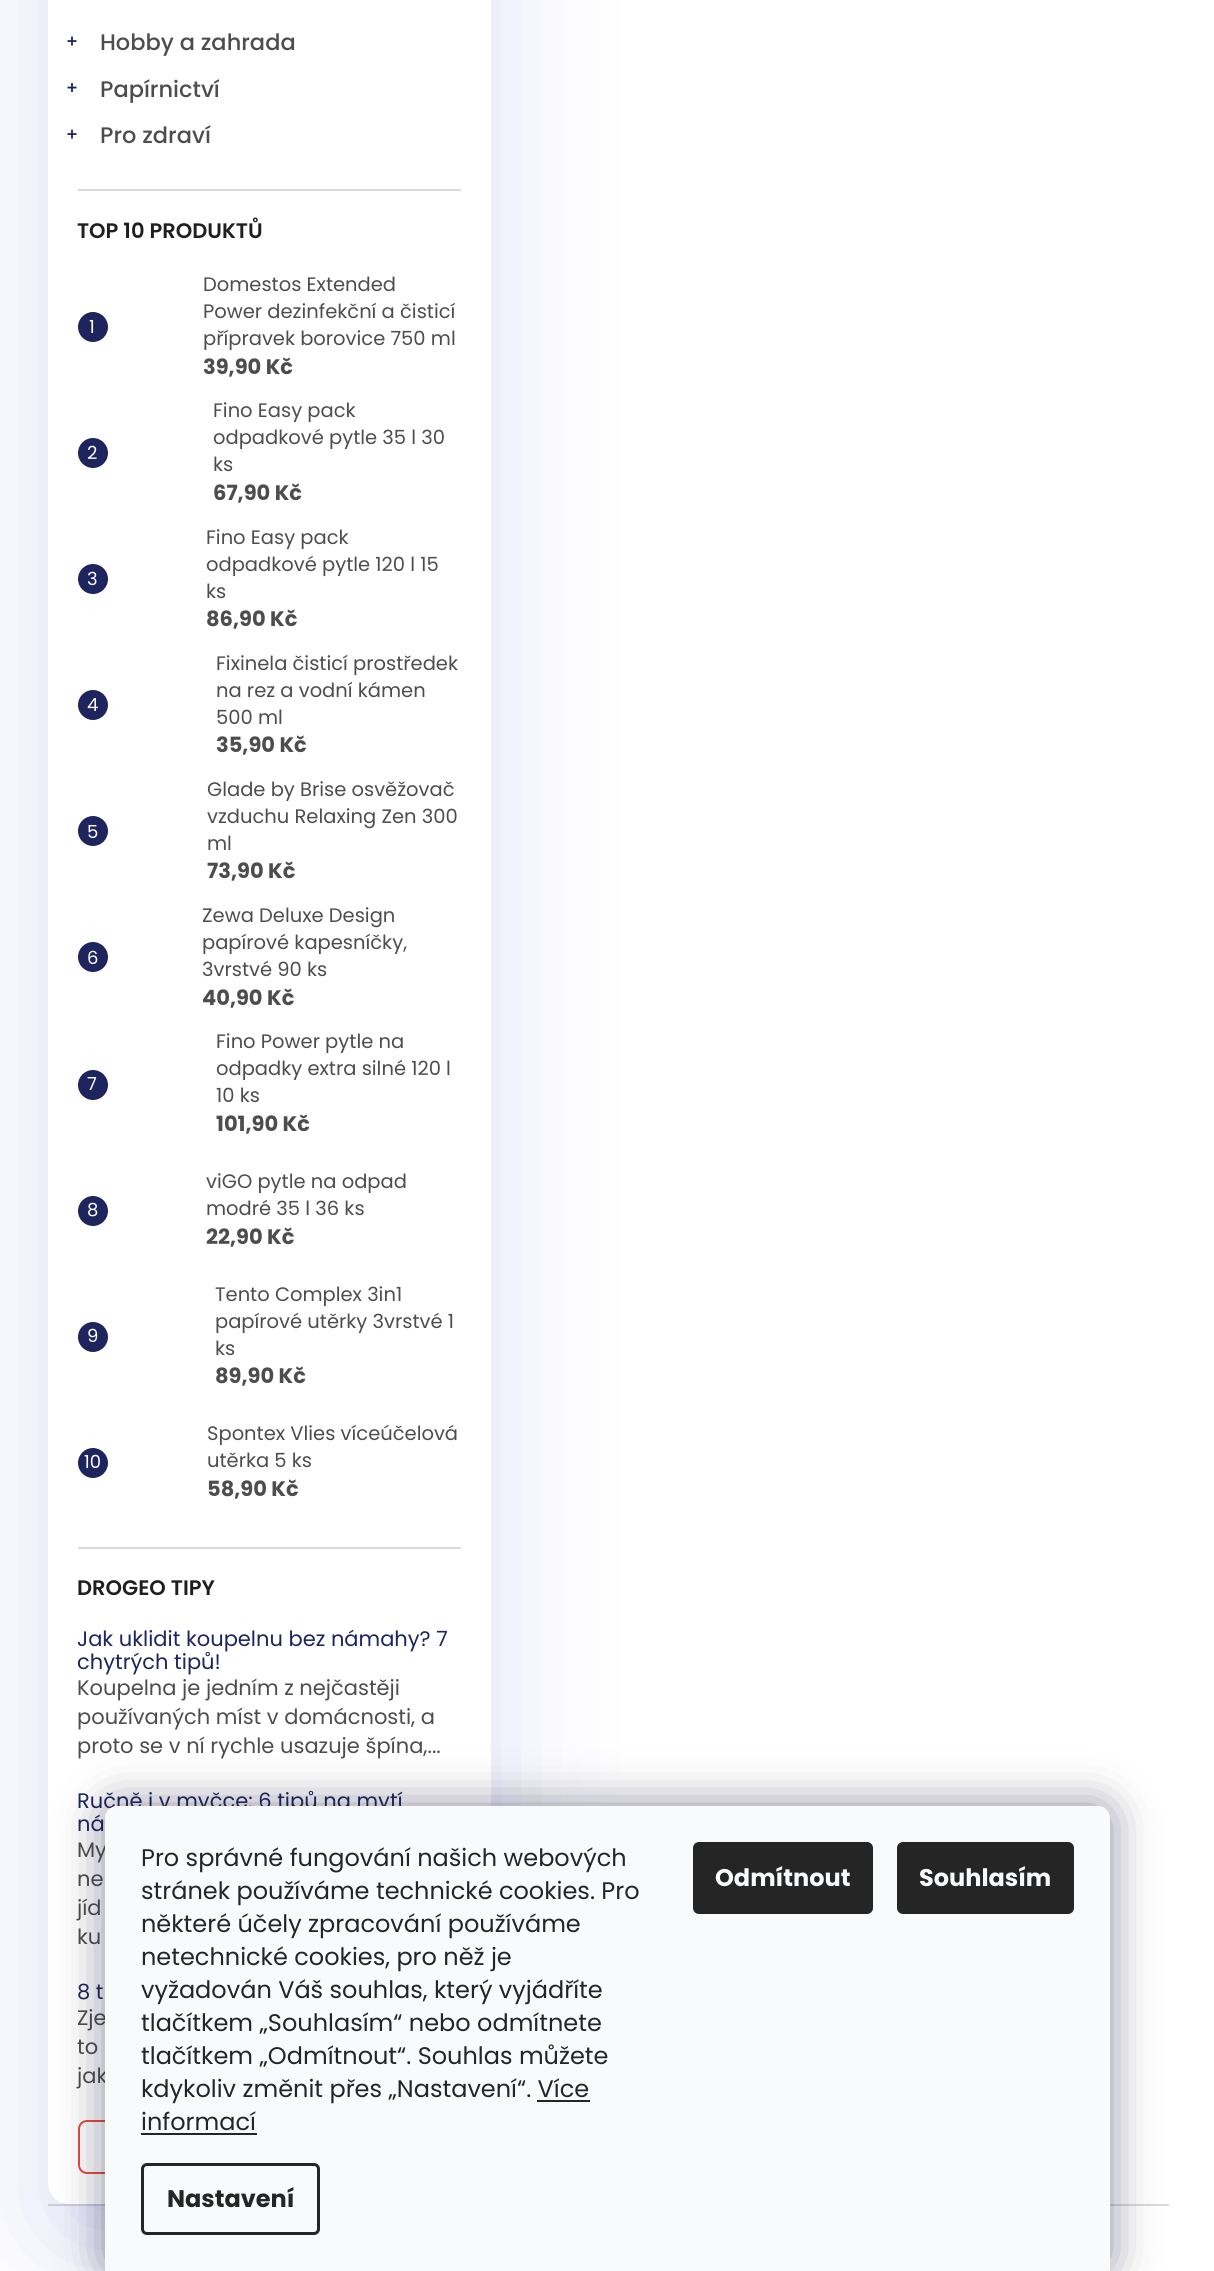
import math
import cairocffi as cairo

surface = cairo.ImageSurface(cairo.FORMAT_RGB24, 1214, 2271)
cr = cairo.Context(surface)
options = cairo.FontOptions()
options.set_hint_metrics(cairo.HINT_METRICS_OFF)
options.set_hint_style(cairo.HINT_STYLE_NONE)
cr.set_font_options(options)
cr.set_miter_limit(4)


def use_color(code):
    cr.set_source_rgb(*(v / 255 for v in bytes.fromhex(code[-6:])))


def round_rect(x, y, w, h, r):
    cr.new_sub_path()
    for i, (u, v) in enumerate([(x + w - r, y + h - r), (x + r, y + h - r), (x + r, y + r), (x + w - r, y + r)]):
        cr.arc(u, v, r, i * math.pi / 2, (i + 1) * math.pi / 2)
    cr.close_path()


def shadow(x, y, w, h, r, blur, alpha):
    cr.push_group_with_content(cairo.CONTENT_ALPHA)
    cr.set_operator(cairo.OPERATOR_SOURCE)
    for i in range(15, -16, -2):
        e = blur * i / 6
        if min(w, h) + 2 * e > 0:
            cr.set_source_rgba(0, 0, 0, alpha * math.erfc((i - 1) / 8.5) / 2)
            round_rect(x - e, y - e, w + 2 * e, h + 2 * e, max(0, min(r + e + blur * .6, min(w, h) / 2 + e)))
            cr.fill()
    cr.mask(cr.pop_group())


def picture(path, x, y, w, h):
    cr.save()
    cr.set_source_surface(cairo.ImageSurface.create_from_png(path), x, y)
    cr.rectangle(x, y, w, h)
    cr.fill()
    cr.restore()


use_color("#ffffff")
cr.paint()
use_color("#dadada")
cr.rectangle(48, 2204, 1121, 2)
cr.fill()
use_color("#7474e3")
shadow(48, -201, 443, 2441, 21, 60, 0.25)
use_color("#ffffff")
round_rect(48, -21, 443, 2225, 21)
cr.fill()
use_color("#dadada")
cr.rectangle(78, 189, 383, 2)
cr.fill()
picture("img1.png", 67, 36, 10, 10)
cr.select_font_face("Poppins Medium")
cr.set_font_size(22.5)
use_color("#4d4d4d")
cr.move_to(100, 50)
cr.show_text("Hobby a zahrada")
picture("img2.png", 67, 83, 10, 10)
cr.move_to(100, 97)
cr.show_text("Papírnictví")
picture("img1.png", 67, 129, 10, 10)
cr.move_to(100, 143)
cr.show_text("Pro zdraví")
use_color("#dadada")
cr.rectangle(78, 1547, 383, 2)
cr.fill()
cr.select_font_face("Poppins SemiBold")
cr.set_font_size(21)
use_color("#1f1f1f")
cr.move_to(77, 238)
cr.show_text("TOP 10 PRODUKTŮ")
use_color("#1e255e")
cr.new_path()
cr.arc(93, 327, 15, 0, 2 * math.pi)
cr.fill()
cr.select_font_face("Poppins")
cr.set_font_size(18)
use_color("#ffffff")
cr.move_to(89, 333)
cr.show_text("1")
cr.set_font_size(19.5)
use_color("#4d4d4d")
cr.move_to(203, 291)
cr.show_text("Domestos Extended")
cr.move_to(203, 318)
cr.show_text("Power dezinfekční a čisticí")
cr.move_to(203, 345)
cr.show_text("přípravek borovice 750 ml")
cr.select_font_face("Poppins", cairo.FONT_SLANT_NORMAL, cairo.FONT_WEIGHT_BOLD)
cr.set_font_size(21)
cr.move_to(203, 374)
cr.show_text("39,90 Kč")
use_color("#1e255e")
cr.new_path()
cr.arc(93, 453, 15, 0, 2 * math.pi)
cr.fill()
cr.select_font_face("Poppins")
cr.set_font_size(18)
use_color("#ffffff")
cr.move_to(87, 459)
cr.show_text("2")
cr.set_font_size(19.5)
use_color("#4d4d4d")
cr.move_to(213, 417)
cr.show_text("Fino Easy pack")
cr.move_to(213, 444)
cr.show_text("odpadkové pytle 35 l 30")
cr.move_to(213, 471)
cr.show_text("ks")
cr.select_font_face("Poppins", cairo.FONT_SLANT_NORMAL, cairo.FONT_WEIGHT_BOLD)
cr.set_font_size(21)
cr.move_to(213, 500)
cr.show_text("67,90 Kč")
use_color("#1e255e")
cr.new_path()
cr.arc(93, 579, 15, 0, 2 * math.pi)
cr.fill()
cr.select_font_face("Poppins")
cr.set_font_size(18)
use_color("#ffffff")
cr.move_to(87, 585)
cr.show_text("3")
cr.set_font_size(19.5)
use_color("#4d4d4d")
cr.move_to(206, 544)
cr.show_text("Fino Easy pack")
cr.move_to(206, 571)
cr.show_text("odpadkové pytle 120 l 15")
cr.move_to(206, 598)
cr.show_text("ks")
cr.select_font_face("Poppins", cairo.FONT_SLANT_NORMAL, cairo.FONT_WEIGHT_BOLD)
cr.set_font_size(21)
cr.move_to(206, 626)
cr.show_text("86,90 Kč")
use_color("#1e255e")
cr.new_path()
cr.arc(93, 705, 15, 0, 2 * math.pi)
cr.fill()
cr.select_font_face("Poppins")
cr.set_font_size(18)
use_color("#ffffff")
cr.move_to(87, 711)
cr.show_text("4")
cr.set_font_size(19.5)
use_color("#4d4d4d")
cr.move_to(216, 670)
cr.show_text("Fixinela čisticí prostředek")
cr.move_to(216, 697)
cr.show_text("na rez a vodní kámen")
cr.move_to(216, 724)
cr.show_text("500 ml")
cr.select_font_face("Poppins", cairo.FONT_SLANT_NORMAL, cairo.FONT_WEIGHT_BOLD)
cr.set_font_size(21)
cr.move_to(216, 752)
cr.show_text("35,90 Kč")
use_color("#1e255e")
cr.new_path()
cr.arc(93, 831, 15, 0, 2 * math.pi)
cr.fill()
cr.select_font_face("Poppins")
cr.set_font_size(18)
use_color("#ffffff")
cr.move_to(87, 838)
cr.show_text("5")
cr.set_font_size(19.5)
use_color("#4d4d4d")
cr.move_to(207, 796)
cr.show_text("Glade by Brise osvěžovač")
cr.move_to(207, 823)
cr.show_text("vzduchu Relaxing Zen 300")
cr.move_to(207, 850)
cr.show_text("ml")
cr.select_font_face("Poppins", cairo.FONT_SLANT_NORMAL, cairo.FONT_WEIGHT_BOLD)
cr.set_font_size(21)
cr.move_to(207, 878)
cr.show_text("73,90 Kč")
use_color("#1e255e")
cr.new_path()
cr.arc(93, 957, 15, 0, 2 * math.pi)
cr.fill()
cr.select_font_face("Poppins")
cr.set_font_size(18)
use_color("#ffffff")
cr.move_to(87, 964)
cr.show_text("6")
cr.set_font_size(19.5)
use_color("#4d4d4d")
cr.move_to(202, 922)
cr.show_text("Zewa Deluxe Design")
cr.move_to(202, 949)
cr.show_text("papírové kapesníčky,")
cr.move_to(202, 976)
cr.show_text("3vrstvé 90 ks")
cr.select_font_face("Poppins", cairo.FONT_SLANT_NORMAL, cairo.FONT_WEIGHT_BOLD)
cr.set_font_size(21)
cr.move_to(202, 1005)
cr.show_text("40,90 Kč")
use_color("#1e255e")
cr.new_path()
cr.arc(93, 1085, 15, 0, 2 * math.pi)
cr.fill()
cr.select_font_face("Poppins")
cr.set_font_size(18)
use_color("#ffffff")
cr.move_to(87, 1090)
cr.show_text("7")
cr.set_font_size(19.5)
use_color("#4d4d4d")
cr.move_to(216, 1048)
cr.show_text("Fino Power pytle na")
cr.move_to(216, 1075)
cr.show_text("odpadky extra silné 120 l")
cr.move_to(216, 1102)
cr.show_text("10 ks")
cr.select_font_face("Poppins", cairo.FONT_SLANT_NORMAL, cairo.FONT_WEIGHT_BOLD)
cr.set_font_size(21)
cr.move_to(216, 1131)
cr.show_text("101,90 Kč")
use_color("#1e255e")
cr.new_path()
cr.arc(93, 1211, 15, 0, 2 * math.pi)
cr.fill()
cr.select_font_face("Poppins")
cr.set_font_size(18)
use_color("#ffffff")
cr.move_to(87, 1216)
cr.show_text("8")
cr.set_font_size(19.5)
use_color("#4d4d4d")
cr.move_to(206, 1188)
cr.show_text("viGO pytle na odpad")
cr.move_to(206, 1215)
cr.show_text("modré 35 l 36 ks")
cr.select_font_face("Poppins", cairo.FONT_SLANT_NORMAL, cairo.FONT_WEIGHT_BOLD)
cr.set_font_size(21)
cr.move_to(206, 1244)
cr.show_text("22,90 Kč")
use_color("#1e255e")
cr.new_path()
cr.arc(93, 1337, 15, 0, 2 * math.pi)
cr.fill()
cr.select_font_face("Poppins")
cr.set_font_size(18)
use_color("#ffffff")
cr.move_to(87, 1342)
cr.show_text("9")
cr.set_font_size(19.5)
use_color("#4d4d4d")
cr.move_to(215, 1301)
cr.show_text("Tento Complex 3in1")
cr.move_to(215, 1328)
cr.show_text("papírové utěrky 3vrstvé 1")
cr.move_to(215, 1355)
cr.show_text("ks")
cr.select_font_face("Poppins", cairo.FONT_SLANT_NORMAL, cairo.FONT_WEIGHT_BOLD)
cr.set_font_size(21)
cr.move_to(215, 1383)
cr.show_text("89,90 Kč")
use_color("#1e255e")
cr.new_path()
cr.arc(93, 1463, 15, 0, 2 * math.pi)
cr.fill()
cr.select_font_face("Poppins")
cr.set_font_size(18)
use_color("#ffffff")
cr.move_to(84, 1468)
cr.show_text("10")
cr.set_font_size(19.5)
use_color("#4d4d4d")
cr.move_to(207, 1440)
cr.show_text("Spontex Vlies víceúčelová")
cr.move_to(207, 1467)
cr.show_text("utěrka 5 ks")
cr.select_font_face("Poppins", cairo.FONT_SLANT_NORMAL, cairo.FONT_WEIGHT_BOLD)
cr.set_font_size(21)
cr.move_to(207, 1496)
cr.show_text("58,90 Kč")
cr.select_font_face("Poppins SemiBold")
use_color("#1f1f1f")
cr.move_to(77, 1595)
cr.show_text("DROGEO TIPY")
cr.select_font_face("Poppins")
use_color("#1e255e")
cr.move_to(77, 1646)
cr.show_text("Jak uklidit koupelnu bez námahy? 7")
cr.move_to(77, 1669)
cr.show_text("chytrých tipů!")
use_color("#4d4d4d")
cr.move_to(77, 1695)
cr.show_text("Koupelna je jedním z nejčastěji")
cr.move_to(77, 1724)
cr.show_text("používaných míst v domácnosti, a")
cr.move_to(77, 1753)
cr.show_text("proto se v ní rychle usazuje špína,...")
use_color("#1e255e")
cr.move_to(77, 1808)
cr.show_text("Ručně i v myčce: 6 tipů na mytí")
cr.move_to(77, 1831)
cr.show_text("ná")
use_color("#4d4d4d")
cr.move_to(77, 1857)
cr.show_text("My")
cr.move_to(77, 1886)
cr.show_text("ne")
cr.move_to(77, 1915)
cr.show_text("jíd")
cr.move_to(77, 1944)
cr.show_text("ku")
use_color("#1e255e")
cr.move_to(77, 1999)
cr.show_text("8 t")
use_color("#4d4d4d")
cr.move_to(77, 2025)
cr.show_text("Zje")
cr.move_to(77, 2054)
cr.show_text("to")
cr.move_to(77, 2083)
cr.show_text("jak")
round_rect(79, 2121, 132, 52, 8)
use_color("#e74c3c")
cr.stroke()
use_color("#1b1939")
shadow(105, 1806, 1005, 465, 12, 22.5, 0.5)
use_color("#f8fafb")
cr.new_path()
cr.move_to(117, 1806)
cr.line_to(1098, 1806)
cr.curve_to(1104.5, 1806, 1110, 1811.5, 1110, 1818)
cr.line_to(1110, 2271)
cr.line_to(105, 2271)
cr.line_to(105, 1818)
cr.curve_to(105, 1811.5, 110.5, 1806, 117, 1806)
cr.close_path()
cr.fill()
cr.set_font_size(24)
use_color("#252525")
cr.move_to(141, 1866)
cr.show_text("Pro správné fungování našich webových")
cr.move_to(141, 1899)
cr.show_text("stránek používáme technické cookies. Pro")
cr.move_to(141, 1932)
cr.show_text("některé účely zpracování používáme")
cr.move_to(141, 1965)
cr.show_text("netechnické cookies, pro něž je")
cr.move_to(141, 1998)
cr.show_text("vyžadován Váš souhlas, který vyjádříte")
cr.move_to(141, 2031)
cr.show_text("tlačítkem „Souhlasím“ nebo odmítnete")
cr.move_to(141, 2064)
cr.show_text("tlačítkem „Odmítnout“. Souhlas můžete")
cr.move_to(141, 2097)
cr.show_text("kdykoliv změnit přes „Nastavení“. Více")
cr.move_to(141, 2130)
cr.show_text("informací")
cr.rectangle(537, 2100, 53, 2)
cr.fill()
cr.rectangle(141, 2133, 116, 2)
cr.fill()
round_rect(142.5, 2164.5, 176, 69, 4.5)
cr.set_line_width(3)
cr.stroke()
cr.select_font_face("Poppins", cairo.FONT_SLANT_NORMAL, cairo.FONT_WEIGHT_BOLD)
cr.move_to(167, 2207)
cr.show_text("Nastavení")
round_rect(693, 1842, 180, 72, 6)
cr.fill()
use_color("#f8fafb")
cr.move_to(715, 1886)
cr.show_text("Odmítnout")
use_color("#252525")
round_rect(897, 1842, 177, 72, 6)
cr.fill()
use_color("#f8fafb")
cr.move_to(919, 1886)
cr.show_text("Souhlasím")
surface.write_to_png("result.png")
